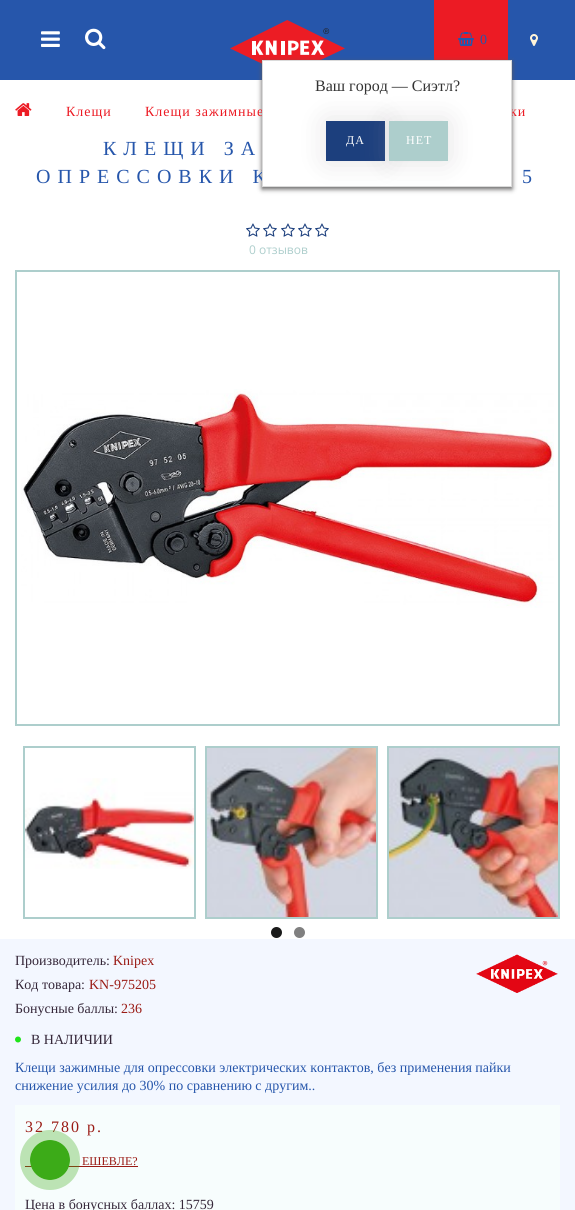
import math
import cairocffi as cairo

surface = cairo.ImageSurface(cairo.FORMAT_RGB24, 575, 1210)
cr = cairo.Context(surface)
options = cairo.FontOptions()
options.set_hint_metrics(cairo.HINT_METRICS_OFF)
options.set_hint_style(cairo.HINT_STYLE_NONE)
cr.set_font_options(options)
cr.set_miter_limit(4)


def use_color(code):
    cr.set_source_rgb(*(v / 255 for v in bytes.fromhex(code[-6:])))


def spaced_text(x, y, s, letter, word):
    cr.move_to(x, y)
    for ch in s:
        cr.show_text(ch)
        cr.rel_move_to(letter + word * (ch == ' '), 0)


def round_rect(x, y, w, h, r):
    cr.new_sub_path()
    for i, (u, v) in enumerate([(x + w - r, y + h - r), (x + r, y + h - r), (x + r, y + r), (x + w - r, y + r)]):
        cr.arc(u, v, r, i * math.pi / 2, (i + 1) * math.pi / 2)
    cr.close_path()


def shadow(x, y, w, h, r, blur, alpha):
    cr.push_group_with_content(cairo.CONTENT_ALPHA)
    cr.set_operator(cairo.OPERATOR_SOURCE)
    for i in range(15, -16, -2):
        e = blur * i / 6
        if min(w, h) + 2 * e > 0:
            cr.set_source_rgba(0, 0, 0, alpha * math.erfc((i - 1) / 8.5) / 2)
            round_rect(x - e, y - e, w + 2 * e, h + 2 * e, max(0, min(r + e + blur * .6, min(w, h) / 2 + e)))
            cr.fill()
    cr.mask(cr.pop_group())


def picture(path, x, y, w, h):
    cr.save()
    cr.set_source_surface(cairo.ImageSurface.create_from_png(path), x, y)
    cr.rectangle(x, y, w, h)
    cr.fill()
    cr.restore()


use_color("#ffffff")
cr.paint()
use_color("#2656ab")
cr.rectangle(0, 0, 575, 80)
cr.fill()
picture("img1.png", 41, 31, 19, 16)
picture("img2.png", 85, 28, 21, 22)
picture("img3.png", 230, 20, 115, 44)
use_color("#ec1b24")
cr.rectangle(434, 0, 74, 60)
cr.fill()
picture("img4.png", 458, 32, 16, 14)
cr.select_font_face("Liberation Serif")
cr.set_font_size(14)
use_color("#2656ab")
cr.move_to(480, 44)
cr.show_text("0")
picture("img5.png", 530, 34, 8, 12)
use_color("#5b5a5a")
shadow(262, 62, 250, 127, 0, 2.5, 1)
use_color("#ec1b24")
spaced_text(145, 116, "Клещи зажимные", 1, 0)
spaced_text(510, 116, "ки", 1, 0)
cr.set_font_size(20)
use_color("#2656ab")
spaced_text(36, 183, "ОПРЕССОВКИ K", 7, 0)
use_color("#ffffff")
cr.rectangle(262.5, 60.5, 249, 126)
cr.fill_preserve()
use_color("#dadada")
cr.set_line_width(1)
cr.stroke()
cr.set_font_size(16)
use_color("#333333")
cr.move_to(315, 91)
cr.show_text("Ваш город — Сиэтл?")
use_color("#9e999e")
shadow(327, 122, 57, 38, 0, 14, 0.3)
use_color("#1c3f7d")
cr.rectangle(326, 121, 59, 40)
cr.fill()
cr.set_font_size(12)
use_color("#ffffff")
spaced_text(346, 144, "ДА", 1, 0)
use_color("#9e999e")
shadow(390, 122, 57, 38, 0, 14, 0.3)
use_color("#adcecc")
cr.rectangle(389, 121, 59, 40)
cr.fill()
use_color("#ffffff")
spaced_text(406, 144, "НЕТ", 1, 0)
picture("img6.png", 15, 103, 17, 13)
cr.set_font_size(14)
use_color("#ec1b24")
spaced_text(66, 116, "Клещи", 1, 0)
cr.set_font_size(20)
use_color("#2656ab")
spaced_text(103, 155, "КЛЕЩИ ЗА", 7, 0)
spaced_text(522, 183, "5", 7, 0)
picture("img7.png", 246, 223, 14, 14)
picture("img7.png", 263, 223, 14, 14)
picture("img7.png", 281, 223, 14, 14)
picture("img7.png", 298, 223, 14, 14)
picture("img7.png", 315, 223, 14, 14)
cr.select_font_face("Open Sans")
cr.set_font_size(12)
use_color("#adcecc")
cr.move_to(249, 254)
cr.show_text("0 отзывов")
cr.rectangle(16, 271, 543, 454)
cr.set_line_width(2)
cr.stroke()
picture("img8.png", 21, 389, 533, 219)
cr.rectangle(24, 747, 171, 171)
cr.stroke()
picture("img9.png", 25, 778, 169, 91)
cr.rectangle(206, 747, 171, 171)
cr.stroke()
picture("img10.png", 207, 748, 169, 169)
cr.rectangle(388, 747, 171, 171)
cr.stroke()
picture("img11.png", 389, 748, 169, 169)
use_color("#1a1a1a")
cr.arc(276.5, 932.5, 5.5, 0, 2 * math.pi)
cr.fill()
use_color("#808080")
cr.arc(299.5, 932.5, 5.5, 0, 2 * math.pi)
cr.fill()
use_color("#f3f7ff")
cr.rectangle(0, 939, 575, 271)
cr.fill()
cr.select_font_face("Liberation Serif")
cr.set_font_size(14)
use_color("#36283a")
cr.move_to(15, 965)
cr.show_text("Производитель:")
use_color("#9a1b15")
cr.move_to(113, 965)
cr.show_text("Knipex")
use_color("#36283a")
cr.move_to(15, 989)
cr.show_text("Код товара:")
use_color("#9a1b15")
cr.move_to(89, 989)
cr.show_text("KN-975205")
use_color("#36283a")
cr.move_to(15, 1013)
cr.show_text("Бонусные баллы:")
use_color("#9a1b15")
cr.move_to(121, 1013)
cr.show_text("236")
picture("img12.png", 15, 1036, 6, 7)
use_color("#36283a")
cr.move_to(31, 1044)
cr.show_text("В НАЛИЧИИ")
use_color("#2656ab")
cr.move_to(15, 1072)
cr.show_text("Клещи зажимные для опрессовки электрических контактов, без применения пайки")
cr.move_to(15, 1090)
cr.show_text("снижение усилия до 30% по сравнению с другим..")
picture("img13.png", 476, 954, 82, 39)
use_color("#f7fdfd")
cr.rectangle(15, 1105, 545, 105)
cr.fill()
cr.set_font_size(16)
use_color("#9a1b15")
spaced_text(25, 1132, "32 780 р.", 2, 0)
cr.set_font_size(12)
cr.move_to(82, 1165)
cr.show_text("ЕШЕВЛЕ?")
cr.rectangle(25, 1166, 113, 1)
cr.fill()
cr.set_font_size(14)
use_color("#36283a")
cr.move_to(25, 1209)
cr.show_text("Цена в бонусных баллах: 15759")
cr.new_path()
cr.arc(50, 1160, 25, 0, 2 * math.pi)
cr.set_source_rgba(0.235, 0.671, 0.094, 0.32)
cr.set_line_width(10)
cr.stroke()
use_color("#3cab18")
cr.arc(50, 1160, 20, 0, 2 * math.pi)
cr.fill()
surface.write_to_png("result.png")
